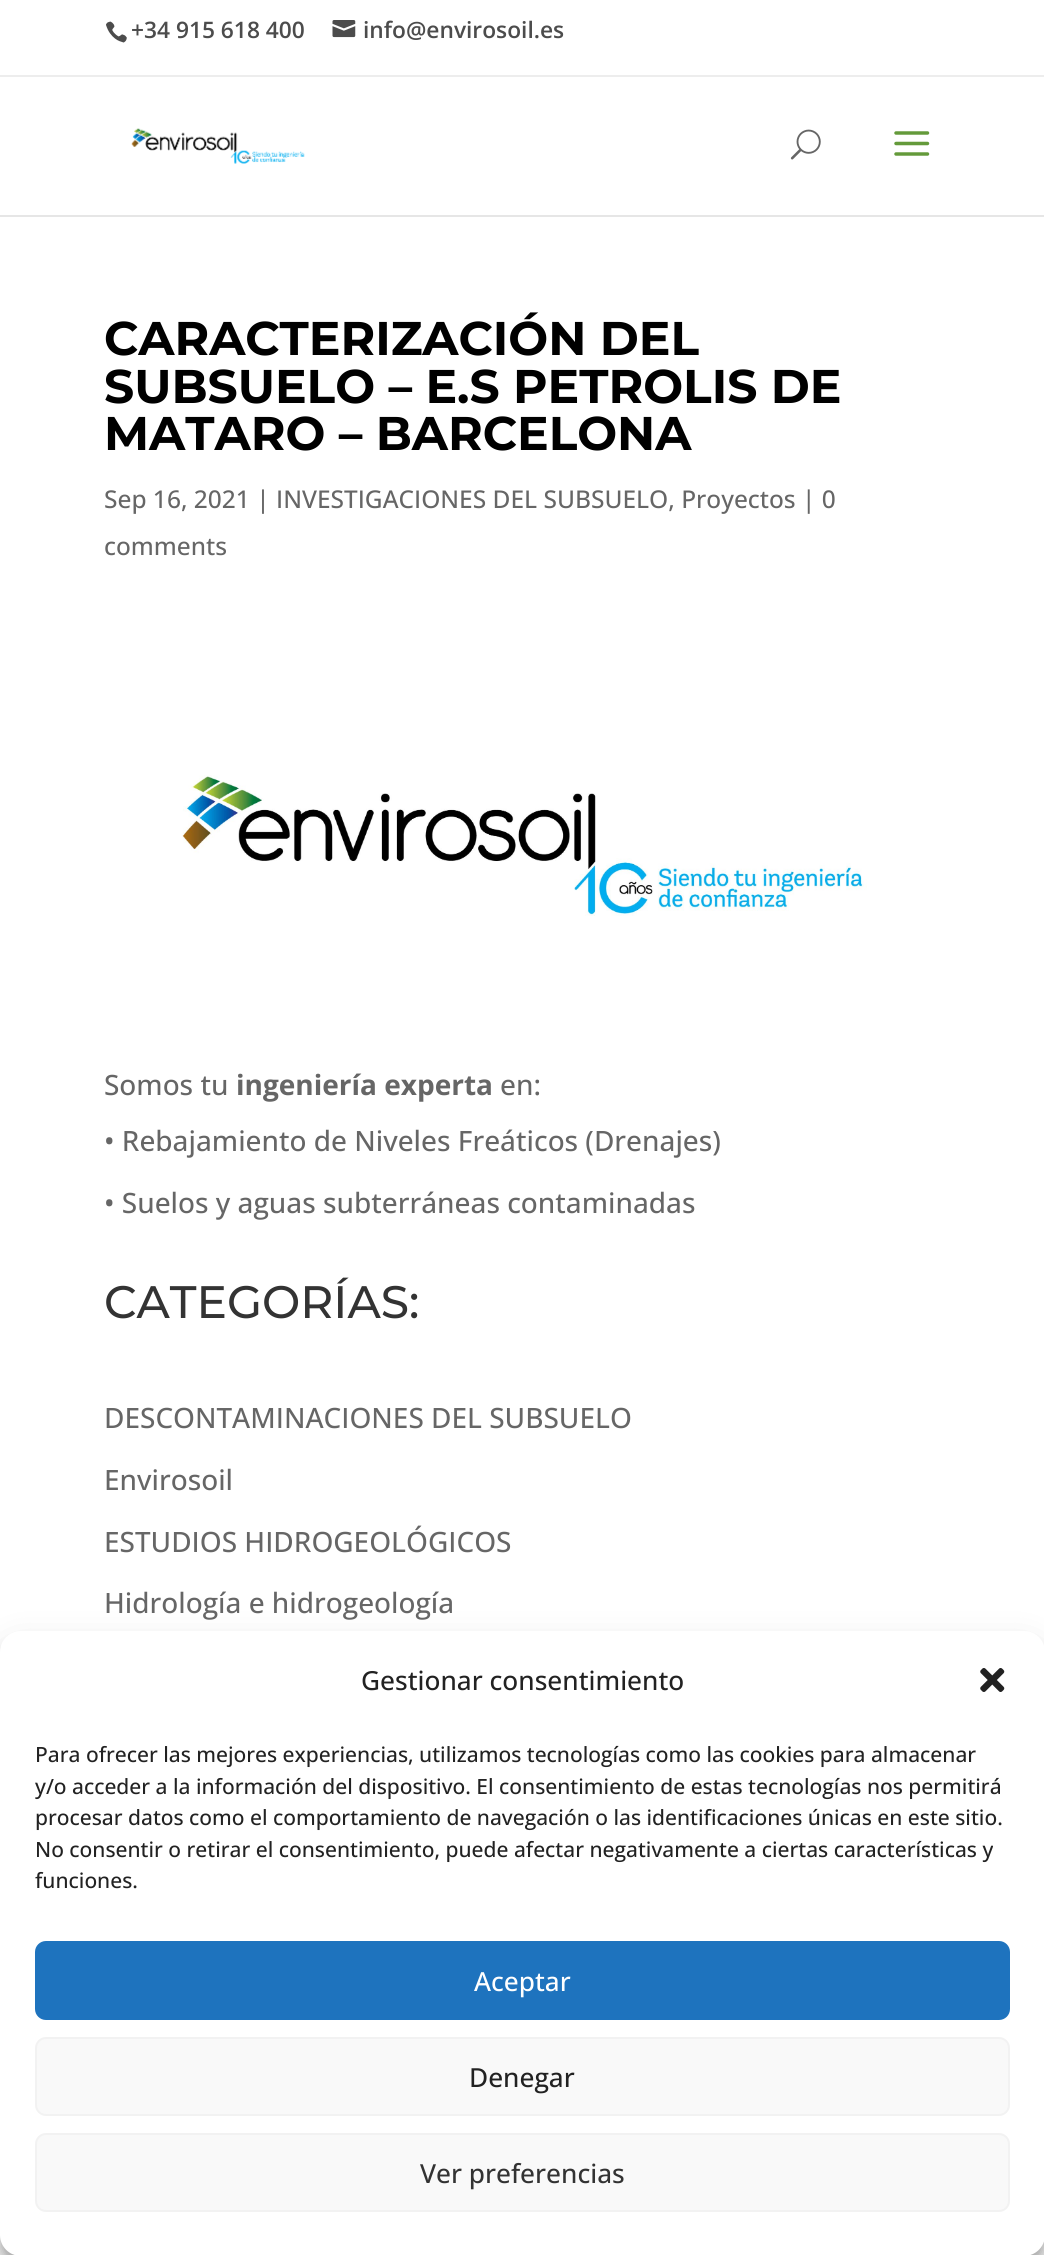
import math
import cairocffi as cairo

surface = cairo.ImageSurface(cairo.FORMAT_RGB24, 1044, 2255)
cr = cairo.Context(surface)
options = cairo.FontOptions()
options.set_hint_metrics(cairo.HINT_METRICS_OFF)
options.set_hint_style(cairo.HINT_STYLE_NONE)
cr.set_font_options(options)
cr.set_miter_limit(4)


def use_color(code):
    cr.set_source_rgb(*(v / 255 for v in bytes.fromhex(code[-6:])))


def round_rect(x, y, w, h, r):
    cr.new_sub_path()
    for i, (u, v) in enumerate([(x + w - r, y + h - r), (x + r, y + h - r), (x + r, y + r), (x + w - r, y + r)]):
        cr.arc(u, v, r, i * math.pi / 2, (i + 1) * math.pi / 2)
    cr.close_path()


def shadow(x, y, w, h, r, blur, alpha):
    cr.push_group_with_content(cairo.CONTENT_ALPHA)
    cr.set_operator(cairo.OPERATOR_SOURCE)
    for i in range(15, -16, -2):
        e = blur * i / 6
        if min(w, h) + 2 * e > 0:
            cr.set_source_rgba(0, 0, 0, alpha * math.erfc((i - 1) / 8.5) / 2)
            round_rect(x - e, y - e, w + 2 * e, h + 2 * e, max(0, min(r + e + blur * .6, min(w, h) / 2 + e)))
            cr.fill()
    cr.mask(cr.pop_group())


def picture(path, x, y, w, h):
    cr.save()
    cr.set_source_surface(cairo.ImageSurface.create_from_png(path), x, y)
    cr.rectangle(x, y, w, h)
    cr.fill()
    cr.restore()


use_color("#ffffff")
cr.paint()
use_color("#ededed")
cr.rectangle(0, 75, 1044, 2)
cr.fill()
picture("img1.png", 106, 21, 21, 22)
cr.select_font_face("Open Sans SemiBold")
cr.set_font_size(22.75)
use_color("#4c4c4c")
cr.move_to(131, 38)
cr.show_text("+34 915 618 400")
picture("img2.png", 332, 20, 24, 18)
cr.move_to(363, 38)
cr.show_text("info@envirosoil.es")
use_color("#e6e6e6")
cr.new_path()
cr.move_to(0, 215)
cr.line_to(0, 217)
cr.line_to(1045, 217)
cr.line_to(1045, 77)
cr.line_to(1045, 215)
cr.close_path()
cr.fill()
picture("img3.png", 131, 128, 174, 36)
picture("img4.png", 790, 129, 31, 31)
picture("img5.png", 894, 131, 36, 25)
cr.select_font_face("Montserrat", cairo.FONT_SLANT_NORMAL, cairo.FONT_WEIGHT_BOLD)
cr.set_font_size(47.25)
use_color("#000000")
cr.move_to(104, 355)
cr.show_text("CARACTERIZACIÓN DEL")
cr.move_to(104, 403)
cr.show_text("SUBSUELO – E.S PETROLIS DE")
cr.move_to(104, 450)
cr.show_text("MATARO – BARCELONA")
cr.select_font_face("Open Sans Medium")
cr.set_font_size(24.5)
use_color("#666666")
cr.move_to(104, 508)
cr.show_text("Sep 16, 2021 | INVESTIGACIONES DEL SUBSUELO, Proyectos | 0")
cr.move_to(104, 555)
cr.show_text("comments")
picture("img6.png", 182, 775, 685, 141)
cr.set_font_size(28)
cr.move_to(104, 1095)
cr.show_text("Somos tu")
cr.select_font_face("Open Sans", cairo.FONT_SLANT_NORMAL, cairo.FONT_WEIGHT_BOLD)
cr.move_to(236, 1095)
cr.show_text("ingeniería experta")
cr.select_font_face("Open Sans Medium")
cr.move_to(500, 1095)
cr.show_text("en:")
cr.move_to(104, 1151)
cr.show_text("• Rebajamiento de Niveles Freáticos (Drenajes)")
cr.move_to(104, 1213)
cr.show_text("• Suelos y aguas subterráneas contaminadas")
cr.select_font_face("Montserrat Medium")
cr.set_font_size(45.5)
use_color("#333333")
cr.move_to(104, 1318)
cr.show_text("CATEGORÍAS:")
cr.select_font_face("Open Sans Medium")
cr.set_font_size(28)
use_color("#666666")
cr.move_to(104, 1428)
cr.show_text("DESCONTAMINACIONES DEL SUBSUELO")
cr.move_to(104, 1490)
cr.show_text("Envirosoil")
cr.move_to(104, 1552)
cr.show_text("ESTUDIOS HIDROGEOLÓGICOS")
cr.move_to(104, 1613)
cr.show_text("Hidrología e hidrogeología")
use_color("#000000")
shadow(0, 1642, 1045, 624, 21, 5, 0.23)
shadow(0, 1649, 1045, 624, 21, 17.5, 0.19)
use_color("#ffffff")
round_rect(0, 1631, 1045, 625, 21)
cr.fill()
cr.set_font_size(26.25)
use_color("#222222")
cr.move_to(361, 1690)
cr.show_text("Gestionar consentimiento")
picture("img7.png", 980, 1668, 25, 24)
cr.set_font_size(21)
cr.move_to(35, 1762)
cr.show_text("Para ofrecer las mejores experiencias, utilizamos tecnologías como las cookies para almacenar")
cr.move_to(35, 1794)
cr.show_text("y/o acceder a la información del dispositivo. El consentimiento de estas tecnologías nos permitirá")
cr.move_to(35, 1825)
cr.show_text("procesar datos como el comportamiento de navegación o las identificaciones únicas en este sitio.")
cr.move_to(35, 1857)
cr.show_text("No consentir o retirar el consentimiento, puede afectar negativamente a ciertas características y")
cr.move_to(35, 1888)
cr.show_text("funciones.")
use_color("#1e73be")
round_rect(36, 1942, 973, 77, 10)
cr.fill_preserve()
cr.stroke()
cr.set_font_size(26.25)
use_color("#ffffff")
cr.move_to(474, 1991)
cr.show_text("Aceptar")
use_color("#f9f9f9")
round_rect(36, 2038, 973, 77, 10)
cr.fill_preserve()
use_color("#f2f2f2")
cr.stroke()
use_color("#222222")
cr.move_to(469, 2087)
cr.show_text("Denegar")
use_color("#f9f9f9")
round_rect(36, 2134, 973, 77, 10)
cr.fill_preserve()
use_color("#f2f2f2")
cr.stroke()
use_color("#333333")
cr.move_to(420, 2183)
cr.show_text("Ver preferencias")
surface.write_to_png("result.png")
